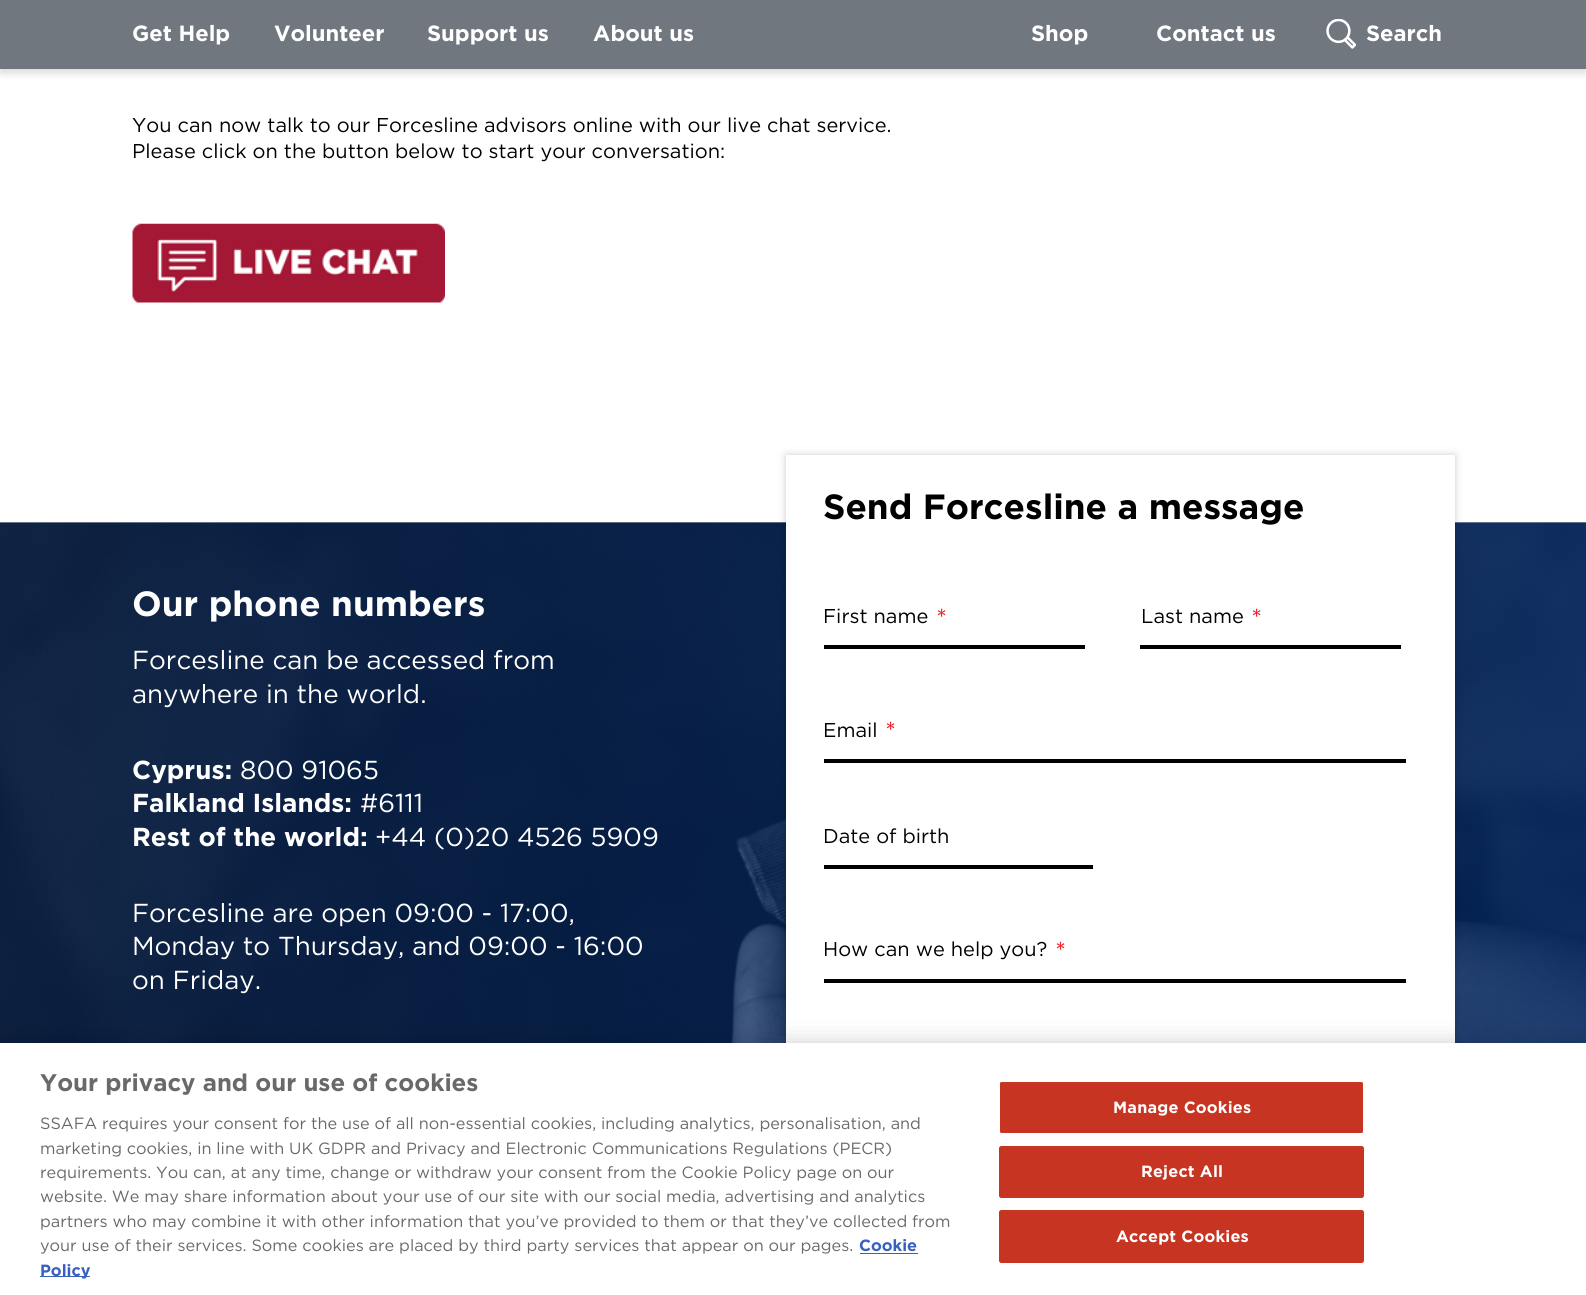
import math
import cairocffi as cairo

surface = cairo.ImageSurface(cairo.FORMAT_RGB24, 1586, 1295)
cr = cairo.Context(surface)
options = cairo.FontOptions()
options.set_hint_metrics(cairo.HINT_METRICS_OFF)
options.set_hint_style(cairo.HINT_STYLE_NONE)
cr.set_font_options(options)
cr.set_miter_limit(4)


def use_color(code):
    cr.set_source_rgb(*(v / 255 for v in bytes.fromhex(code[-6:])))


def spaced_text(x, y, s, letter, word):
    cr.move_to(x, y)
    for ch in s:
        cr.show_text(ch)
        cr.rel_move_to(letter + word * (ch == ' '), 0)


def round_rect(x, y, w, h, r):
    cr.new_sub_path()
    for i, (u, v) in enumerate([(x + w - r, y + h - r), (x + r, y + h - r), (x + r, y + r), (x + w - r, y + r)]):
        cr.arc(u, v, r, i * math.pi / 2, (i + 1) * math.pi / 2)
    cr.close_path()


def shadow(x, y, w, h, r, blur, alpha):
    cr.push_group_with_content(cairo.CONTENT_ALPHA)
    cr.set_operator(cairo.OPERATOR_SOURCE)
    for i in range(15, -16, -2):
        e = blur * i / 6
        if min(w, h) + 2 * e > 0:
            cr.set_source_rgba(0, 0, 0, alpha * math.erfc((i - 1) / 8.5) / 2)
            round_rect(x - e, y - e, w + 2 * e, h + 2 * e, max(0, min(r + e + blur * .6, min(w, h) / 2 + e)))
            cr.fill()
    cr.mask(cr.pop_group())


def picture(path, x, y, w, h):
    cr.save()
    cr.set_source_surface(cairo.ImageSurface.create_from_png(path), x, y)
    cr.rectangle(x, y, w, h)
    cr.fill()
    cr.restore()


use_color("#ffffff")
cr.paint()
use_color("#000000")
shadow(0, 4, 1586, 69, 0, 4, 0.15)
use_color("#70777e")
cr.rectangle(0, 0, 1586, 69)
cr.fill()
cr.select_font_face("Gotham", cairo.FONT_SLANT_NORMAL, cairo.FONT_WEIGHT_BOLD)
cr.set_font_size(22)
use_color("#ffffff")
cr.move_to(132, 41)
cr.show_text("Get Help")
cr.move_to(274, 41)
cr.show_text("Volunteer")
cr.move_to(427, 41)
cr.show_text("Support us")
cr.move_to(593, 41)
cr.show_text("About us")
cr.move_to(1031, 41)
cr.show_text("Shop")
cr.move_to(1156, 41)
cr.show_text("Contact us")
picture("img1.png", 1326, 19, 30, 30)
cr.move_to(1366, 41)
cr.show_text("Search")
cr.select_font_face("Gotham")
cr.set_font_size(20)
use_color("#000000")
cr.move_to(132, 132)
cr.show_text("You can now talk to our Forcesline advisors online with our live chat service.")
cr.move_to(132, 158)
cr.show_text("Please click on the button below to start your conversation:")
picture("img2.png", 132, 223, 313, 80)
picture("img3.png", 0, 522, 1586, 521)
cr.select_font_face("Gotham", cairo.FONT_SLANT_NORMAL, cairo.FONT_WEIGHT_BOLD)
cr.set_font_size(35)
use_color("#ffffff")
cr.move_to(132, 616)
cr.show_text("Our phone numbers")
cr.select_font_face("Gotham")
cr.set_font_size(26)
cr.move_to(132, 669)
cr.show_text("Forcesline can be accessed from")
cr.move_to(132, 703)
cr.show_text("anywhere in the world.")
cr.select_font_face("Gotham", cairo.FONT_SLANT_NORMAL, cairo.FONT_WEIGHT_BOLD)
cr.move_to(132, 779)
cr.show_text("Cyprus:")
cr.select_font_face("Gotham")
cr.move_to(240, 779)
cr.show_text("800 91065")
cr.select_font_face("Gotham", cairo.FONT_SLANT_NORMAL, cairo.FONT_WEIGHT_BOLD)
cr.move_to(132, 812)
cr.show_text("Falkland Islands:")
cr.select_font_face("Gotham")
cr.move_to(360, 812)
cr.show_text("#6111")
cr.select_font_face("Gotham", cairo.FONT_SLANT_NORMAL, cairo.FONT_WEIGHT_BOLD)
cr.move_to(132, 846)
cr.show_text("Rest of the world:")
cr.select_font_face("Gotham")
cr.move_to(375, 846)
cr.show_text("+44 (0)20 4526 5909")
cr.move_to(132, 922)
cr.show_text("Forcesline are open 09:00 - 17:00,")
cr.move_to(132, 955)
cr.show_text("Monday to Thursday, and 09:00 - 16:00")
cr.move_to(132, 989)
cr.show_text("on Friday.")
use_color("#000000")
shadow(786, 455, 669, 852, 0, 4, 0.2)
use_color("#ffffff")
cr.rectangle(786, 455, 669, 588)
cr.fill()
cr.select_font_face("Gotham", cairo.FONT_SLANT_NORMAL, cairo.FONT_WEIGHT_BOLD)
cr.set_font_size(35)
use_color("#000000")
cr.move_to(823, 519)
cr.show_text("Send Forcesline a message")
cr.select_font_face("Gotham")
cr.set_font_size(20)
cr.move_to(823, 623)
cr.show_text("First name")
cr.set_font_size(26)
use_color("#ed1c24")
cr.move_to(936, 627)
cr.show_text("*")
use_color("#000000")
cr.rectangle(824, 645, 261, 4)
cr.fill()
cr.set_font_size(20)
cr.move_to(1141, 623)
cr.show_text("Last name")
cr.set_font_size(26)
use_color("#ed1c24")
cr.move_to(1251, 627)
cr.show_text("*")
use_color("#000000")
cr.rectangle(1140, 645, 261, 4)
cr.fill()
cr.set_font_size(20)
cr.move_to(823, 737)
cr.show_text("Email")
cr.set_font_size(26)
use_color("#ed1c24")
cr.move_to(885, 740)
cr.show_text("*")
use_color("#000000")
cr.rectangle(824, 759, 582, 4)
cr.fill()
cr.set_font_size(20)
cr.move_to(823, 843)
cr.show_text("Date of birth")
cr.rectangle(824, 865, 269, 4)
cr.fill()
cr.move_to(823, 956)
cr.show_text("How can we help you?")
cr.set_font_size(26)
use_color("#ed1c24")
cr.move_to(1055, 960)
cr.show_text("*")
use_color("#000000")
cr.rectangle(824, 979, 582, 4)
cr.fill()
use_color("#000000")
shadow(0, 1043, 1586, 252, 0, 11, 0.2)
use_color("#ffffff")
cr.rectangle(0, 1043, 1586, 252)
cr.fill()
cr.select_font_face("Gotham", cairo.FONT_SLANT_NORMAL, cairo.FONT_WEIGHT_BOLD)
cr.set_font_size(24)
use_color("#696969")
cr.move_to(40, 1091)
cr.show_text("Your privacy and our use of cookies")
cr.select_font_face("Gotham")
cr.set_font_size(16.25)
cr.move_to(40, 1129)
cr.show_text("SSAFA requires your consent for the use of all non-essential cookies, including analytics, personalisation, and")
cr.move_to(40, 1154)
cr.show_text("marketing cookies, in line with UK GDPR and Privacy and Electronic Communications Regulations (PECR)")
cr.move_to(40, 1178)
cr.show_text("requirements. You can, at any time, change or withdraw your consent from the Cookie Policy page on our")
cr.move_to(40, 1202)
cr.show_text("website. We may share information about your use of our site with our social media, advertising and analytics")
cr.move_to(40, 1227)
cr.show_text("partners who may combine it with other information that you’ve provided to them or that they’ve collected from")
cr.move_to(40, 1251)
cr.show_text("your use of their services. Some cookies are placed by third party services that appear on our pages.")
cr.select_font_face("Gotham", cairo.FONT_SLANT_NORMAL, cairo.FONT_WEIGHT_BOLD)
use_color("#3860be")
cr.move_to(859, 1251)
cr.show_text("Cookie")
cr.rectangle(860, 1253, 58, 1)
cr.fill()
cr.rectangle(40, 1276, 50, 1)
cr.fill()
cr.move_to(40, 1276)
cr.show_text("Policy")
use_color("#c83422")
round_rect(999.5, 1081.5, 364, 52, 2)
cr.fill_preserve()
use_color("#ffffff")
cr.set_line_width(1)
cr.stroke()
spaced_text(1113, 1113, "Manage Cookies", 0.2, 0)
use_color("#c83422")
round_rect(999.5, 1146.5, 364, 51, 2)
cr.fill_preserve()
cr.stroke()
use_color("#ffffff")
spaced_text(1141, 1177, "Reject All", 0.2, 0)
use_color("#c83422")
round_rect(999.5, 1210.5, 364, 52, 2)
cr.fill_preserve()
cr.stroke()
use_color("#ffffff")
spaced_text(1116, 1242, "Accept Cookies", 0.2, 0)
surface.write_to_png("result.png")
